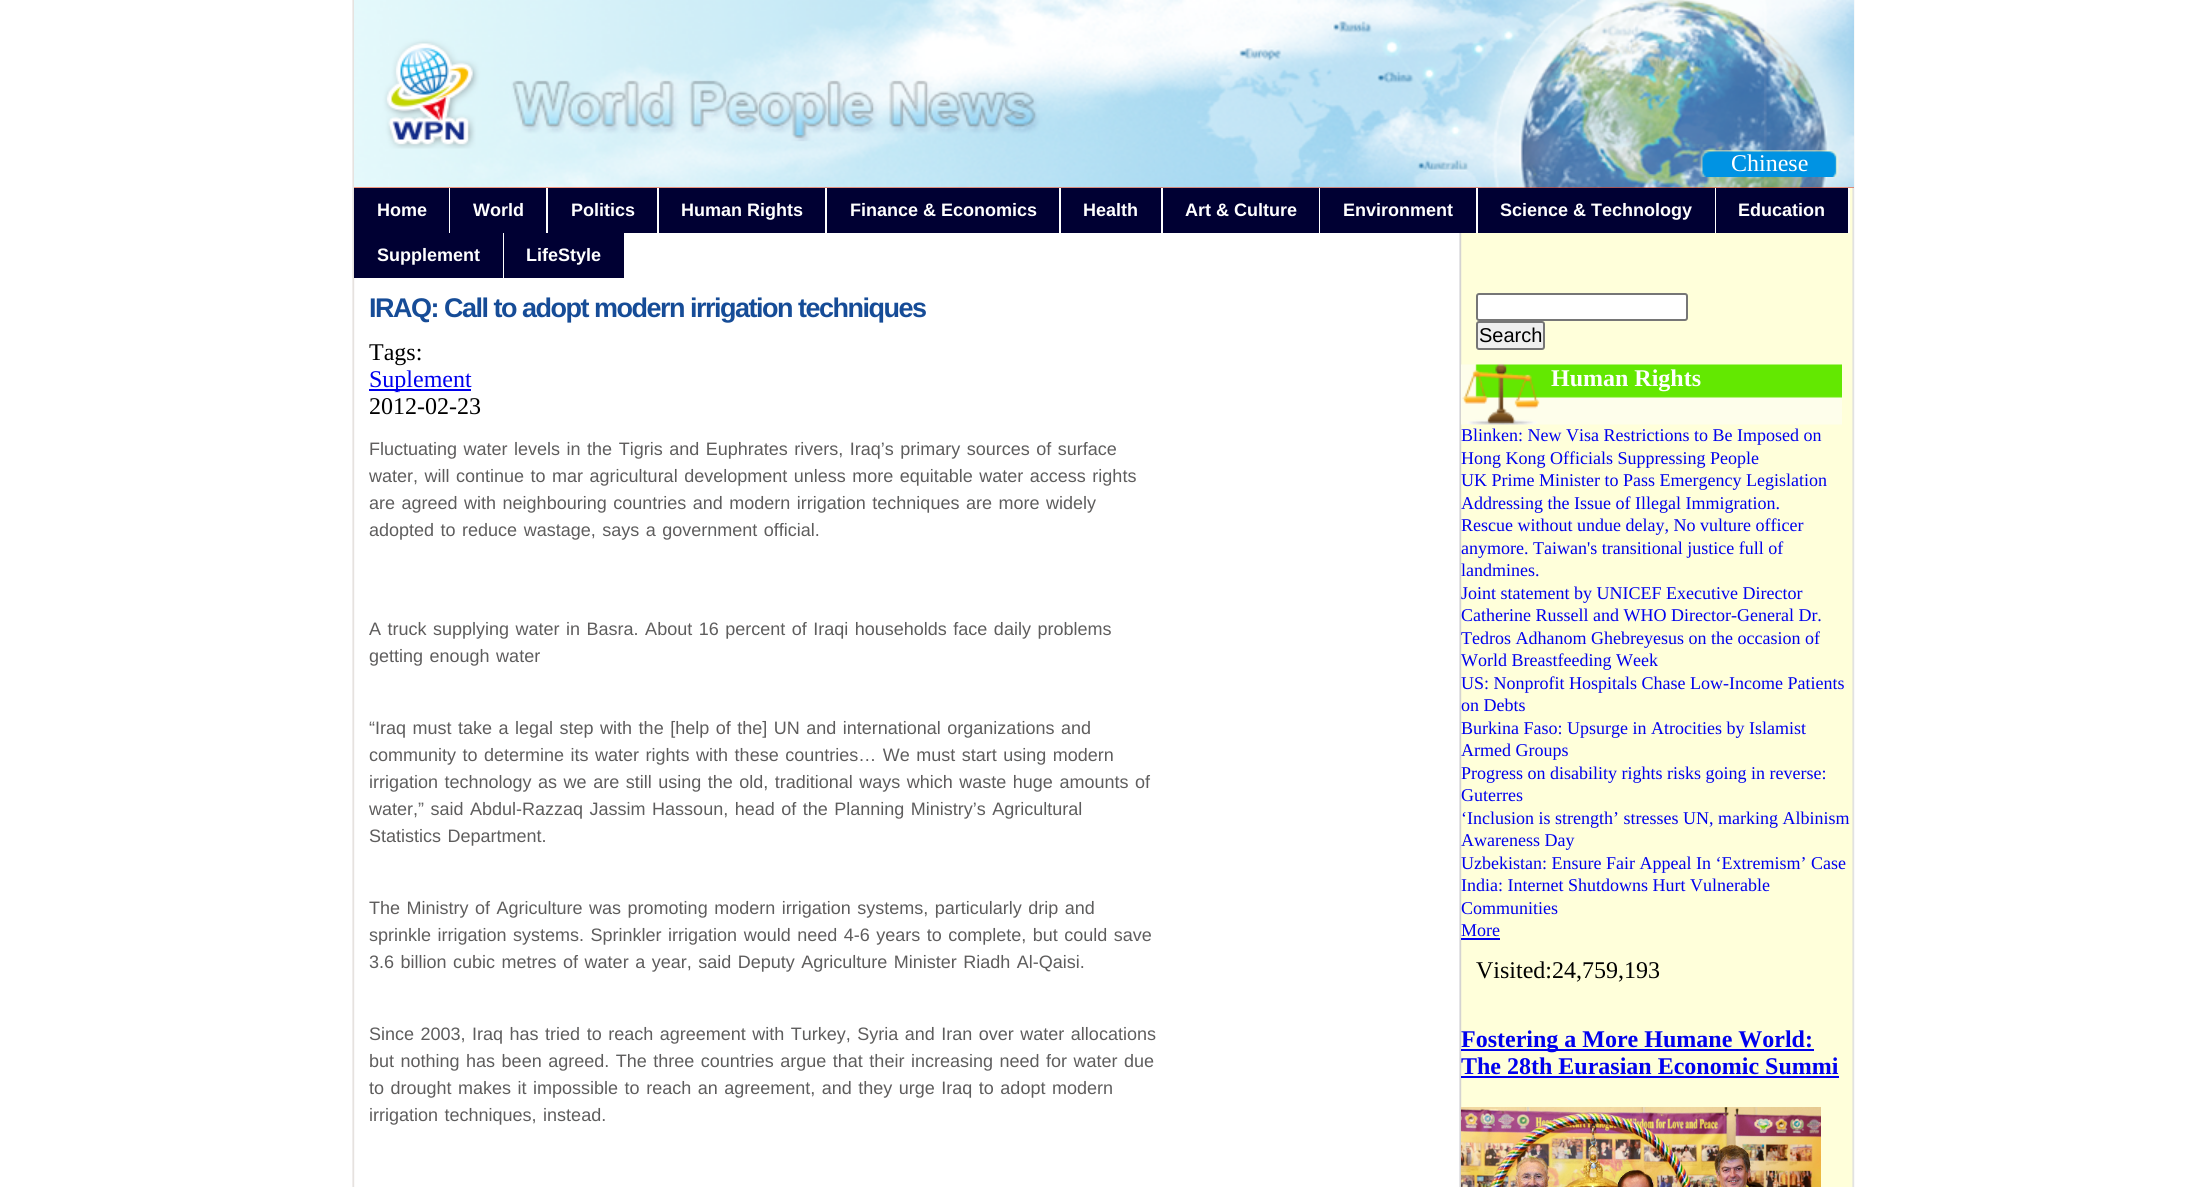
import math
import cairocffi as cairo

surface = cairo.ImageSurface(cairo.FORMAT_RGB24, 2207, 1187)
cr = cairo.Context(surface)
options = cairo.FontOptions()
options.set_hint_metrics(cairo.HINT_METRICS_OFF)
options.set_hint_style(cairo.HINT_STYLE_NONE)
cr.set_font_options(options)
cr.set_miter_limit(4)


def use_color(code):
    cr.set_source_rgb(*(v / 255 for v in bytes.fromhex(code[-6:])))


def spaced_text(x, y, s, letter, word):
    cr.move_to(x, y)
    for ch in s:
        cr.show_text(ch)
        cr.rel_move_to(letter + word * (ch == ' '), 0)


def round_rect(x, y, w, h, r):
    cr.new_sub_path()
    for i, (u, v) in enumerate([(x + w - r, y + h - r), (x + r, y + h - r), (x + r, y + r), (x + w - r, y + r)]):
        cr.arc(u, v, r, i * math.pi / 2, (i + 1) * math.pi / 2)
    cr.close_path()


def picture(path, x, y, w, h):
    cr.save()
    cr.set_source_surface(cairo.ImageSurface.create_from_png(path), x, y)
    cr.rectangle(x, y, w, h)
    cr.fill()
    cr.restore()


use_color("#ffffff")
cr.paint()
picture("img1.png", 352, 0, 1503, 1187)
use_color("#ff3300")
cr.rectangle(354, 187, 1500, 1)
cr.fill()
picture("img2.png", 354, 0, 1500, 188)
picture("img3.png", 1699, 150, 140, 27)
cr.select_font_face("Liberation Serif")
cr.set_font_size(24)
use_color("#ffffff")
cr.move_to(1731, 171)
cr.show_text("Chinese")
use_color("#000033")
cr.rectangle(354, 188, 95, 45)
cr.fill()
cr.select_font_face("Liberation Sans", cairo.FONT_SLANT_NORMAL, cairo.FONT_WEIGHT_BOLD)
cr.set_font_size(18)
use_color("#ffffff")
cr.move_to(377, 216)
cr.show_text("Home")
use_color("#000033")
cr.rectangle(450, 188, 96, 45)
cr.fill()
use_color("#ffffff")
cr.move_to(473, 216)
cr.show_text("World")
use_color("#000033")
cr.rectangle(548, 188, 109, 45)
cr.fill()
use_color("#ffffff")
cr.move_to(571, 216)
cr.show_text("Politics")
use_color("#000033")
cr.rectangle(659, 188, 166, 45)
cr.fill()
use_color("#ffffff")
cr.move_to(681, 216)
cr.show_text("Human Rights")
use_color("#000033")
cr.rectangle(827, 188, 232, 45)
cr.fill()
use_color("#ffffff")
cr.move_to(850, 216)
cr.show_text("Finance & Economics")
use_color("#000033")
cr.rectangle(1061, 188, 100, 45)
cr.fill()
use_color("#ffffff")
cr.move_to(1083, 216)
cr.show_text("Health")
use_color("#000033")
cr.rectangle(1163, 188, 156, 45)
cr.fill()
use_color("#ffffff")
cr.move_to(1185, 216)
cr.show_text("Art & Culture")
use_color("#000033")
cr.rectangle(1320, 188, 156, 45)
cr.fill()
use_color("#ffffff")
cr.rectangle(1476, 188, 2, 45)
cr.fill()
cr.move_to(1343, 216)
cr.show_text("Environment")
use_color("#000033")
cr.rectangle(1478, 188, 237, 45)
cr.fill()
use_color("#ffffff")
cr.rectangle(1715, 188, 1, 45)
cr.fill()
cr.move_to(1500, 216)
cr.show_text("Science & Technology")
use_color("#000033")
cr.rectangle(1716, 188, 132, 45)
cr.fill()
use_color("#ffffff")
cr.rectangle(1848, 188, 2, 45)
cr.fill()
cr.move_to(1738, 216)
cr.show_text("Education")
use_color("#000033")
cr.rectangle(354, 233, 149, 45)
cr.fill()
use_color("#ffffff")
cr.move_to(377, 261)
cr.show_text("Supplement")
use_color("#000033")
cr.rectangle(504, 233, 120, 45)
cr.fill()
use_color("#ffffff")
cr.move_to(526, 261)
cr.show_text("LifeStyle")
cr.set_font_size(27)
use_color("#164c97")
spaced_text(369, 317, "IRAQ: Call to adopt modern irrigation techniques", -1.5, 0)
cr.select_font_face("Liberation Serif")
cr.set_font_size(24)
use_color("#000000")
cr.move_to(369, 360)
cr.show_text("Tags:")
use_color("#0000ee")
cr.rectangle(369, 389, 102, 2)
cr.fill()
cr.move_to(369, 387)
cr.show_text("Suplement")
use_color("#000000")
cr.move_to(369, 414)
cr.show_text("2012-02-23")
cr.select_font_face("Liberation Sans")
cr.set_font_size(18)
use_color("#5e5d5d")
spaced_text(369, 455, "Fluctuating water levels in the Tigris and Euphrates rivers, Iraq’s primary sources of surface", 0, 1.5)
spaced_text(369, 482, "water, will continue to mar agricultural development unless more equitable water access rights", 0, 1.5)
spaced_text(369, 509, "are agreed with neighbouring countries and modern irrigation techniques are more widely", 0, 1.5)
spaced_text(369, 536, "adopted to reduce wastage, says a government official.", 0, 1.5)
spaced_text(369, 635, "A truck supplying water in Basra. About 16 percent of Iraqi households face daily problems", 0, 1.5)
spaced_text(369, 662, "getting enough water", 0, 1.5)
spaced_text(369, 734, "“Iraq must take a legal step with the [help of the] UN and international organizations and", 0, 1.5)
spaced_text(369, 761, "community to determine its water rights with these countries… We must start using modern", 0, 1.5)
spaced_text(369, 788, "irrigation technology as we are still using the old, traditional ways which waste huge amounts of", 0, 1.5)
spaced_text(369, 815, "water,” said Abdul-Razzaq Jassim Hassoun, head of the Planning Ministry’s Agricultural", 0, 1.5)
spaced_text(369, 842, "Statistics Department.", 0, 1.5)
spaced_text(369, 914, "The Ministry of Agriculture was promoting modern irrigation systems, particularly drip and", 0, 1.5)
spaced_text(369, 941, "sprinkle irrigation systems. Sprinkler irrigation would need 4-6 years to complete, but could save", 0, 1.5)
spaced_text(369, 968, "3.6 billion cubic metres of water a year, said Deputy Agriculture Minister Riadh Al-Qaisi.", 0, 1.5)
spaced_text(369, 1040, "Since 2003, Iraq has tried to reach agreement with Turkey, Syria and Iran over water allocations", 0, 1.5)
spaced_text(369, 1067, "but nothing has been agreed. The three countries argue that their increasing need for water due", 0, 1.5)
spaced_text(369, 1094, "to drought makes it impossible to reach an agreement, and they urge Iraq to adopt modern", 0, 1.5)
spaced_text(369, 1121, "irrigation techniques, instead.", 0, 1.5)
use_color("#ffffff")
round_rect(1477, 294, 210, 26, 2)
cr.fill_preserve()
use_color("#767676")
cr.stroke()
use_color("#efefef")
round_rect(1477, 322, 67, 27, 2)
cr.fill_preserve()
use_color("#767676")
cr.stroke()
cr.set_font_size(20)
use_color("#000000")
cr.move_to(1479, 342)
cr.show_text("Search")
picture("img4.png", 1461, 364, 381, 61)
cr.select_font_face("Liberation Serif", cairo.FONT_SLANT_NORMAL, cairo.FONT_WEIGHT_BOLD)
cr.set_font_size(24)
use_color("#ffffff")
cr.move_to(1551, 386)
cr.show_text("Human Rights")
cr.select_font_face("Liberation Serif")
cr.set_font_size(18)
use_color("#0000ee")
cr.move_to(1461, 441)
cr.show_text("Blinken: New Visa Restrictions to Be Imposed on")
cr.move_to(1461, 464)
cr.show_text("Hong Kong Officials Suppressing People")
cr.move_to(1461, 486)
cr.show_text("UK Prime Minister to Pass Emergency Legislation")
cr.move_to(1461, 509)
cr.show_text("Addressing the Issue of Illegal Immigration.")
cr.move_to(1461, 531)
cr.show_text("Rescue without undue delay, No vulture officer")
cr.move_to(1461, 554)
cr.show_text("anymore. Taiwan's transitional justice full of")
cr.move_to(1461, 576)
cr.show_text("landmines.")
cr.move_to(1461, 599)
cr.show_text("Joint statement by UNICEF Executive Director")
cr.move_to(1461, 621)
cr.show_text("Catherine Russell and WHO Director-General Dr.")
cr.move_to(1461, 644)
cr.show_text("Tedros Adhanom Ghebreyesus on the occasion of")
cr.move_to(1461, 666)
cr.show_text("World Breastfeeding Week")
cr.move_to(1461, 689)
cr.show_text("US: Nonprofit Hospitals Chase Low-Income Patients")
cr.move_to(1461, 711)
cr.show_text("on Debts")
cr.move_to(1461, 734)
cr.show_text("Burkina Faso: Upsurge in Atrocities by Islamist")
cr.move_to(1461, 756)
cr.show_text("Armed Groups")
cr.move_to(1461, 779)
cr.show_text("Progress on disability rights risks going in reverse:")
cr.move_to(1461, 801)
cr.show_text("Guterres")
cr.move_to(1461, 824)
cr.show_text("‘Inclusion is strength’ stresses UN, marking Albinism")
cr.move_to(1461, 846)
cr.show_text("Awareness Day")
cr.move_to(1461, 869)
cr.show_text("Uzbekistan: Ensure Fair Appeal In ‘Extremism’ Case")
cr.move_to(1461, 891)
cr.show_text("India: Internet Shutdowns Hurt Vulnerable")
cr.move_to(1461, 914)
cr.show_text("Communities")
cr.move_to(1461, 936)
cr.show_text("More")
cr.rectangle(1461, 938, 39, 2)
cr.fill()
cr.set_font_size(24)
use_color("#000000")
cr.move_to(1476, 978)
cr.show_text("Visited:24,759,193")
use_color("#0000ee")
cr.rectangle(1461, 1049, 353, 2)
cr.fill()
cr.select_font_face("Liberation Serif", cairo.FONT_SLANT_NORMAL, cairo.FONT_WEIGHT_BOLD)
cr.move_to(1461, 1047)
cr.show_text("Fostering a More Humane World:")
cr.move_to(1461, 1074)
cr.show_text("The 28th Eurasian Economic Summi")
cr.rectangle(1461, 1076, 378, 2)
cr.fill()
picture("img5.png", 1461, 1107, 360, 80)
surface.write_to_png("result.png")
